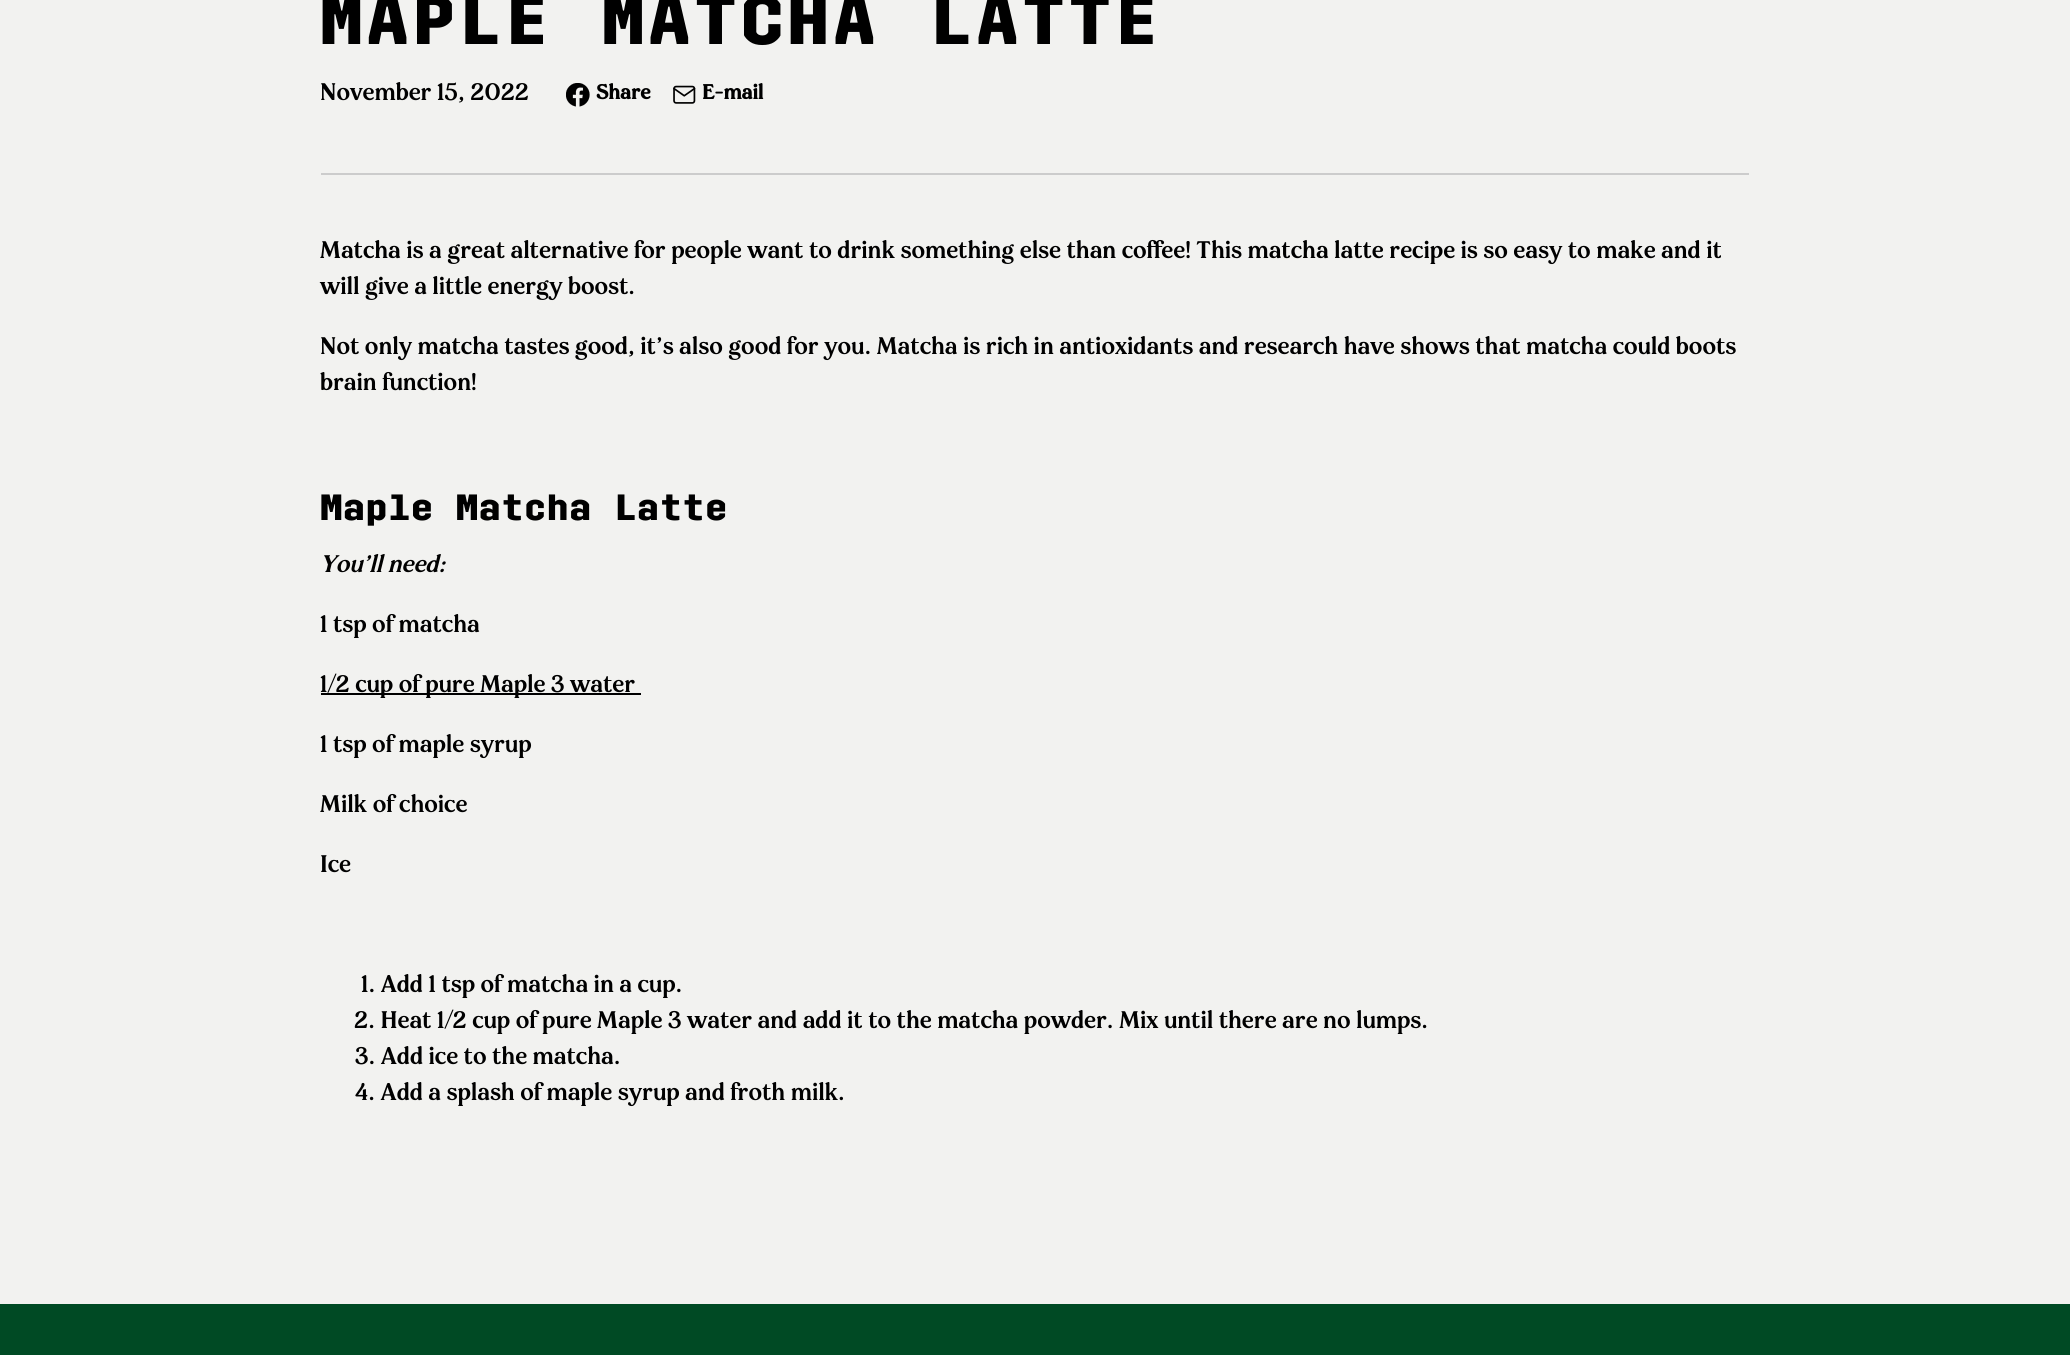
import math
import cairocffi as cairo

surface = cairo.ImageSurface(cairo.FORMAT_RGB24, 2070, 1355)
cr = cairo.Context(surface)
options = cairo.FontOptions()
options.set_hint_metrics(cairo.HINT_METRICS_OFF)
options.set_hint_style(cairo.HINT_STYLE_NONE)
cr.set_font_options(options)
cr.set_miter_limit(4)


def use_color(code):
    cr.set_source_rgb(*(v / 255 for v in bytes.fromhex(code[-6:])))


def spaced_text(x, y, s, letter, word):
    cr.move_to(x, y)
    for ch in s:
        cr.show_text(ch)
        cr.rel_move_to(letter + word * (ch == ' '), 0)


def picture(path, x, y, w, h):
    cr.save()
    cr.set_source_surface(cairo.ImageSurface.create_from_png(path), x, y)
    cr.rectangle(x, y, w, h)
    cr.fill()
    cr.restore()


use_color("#f2f2f0")
cr.paint()
use_color("#cccccc")
cr.rectangle(321, 173, 1428, 2)
cr.fill()
cr.select_font_face("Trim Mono", cairo.FONT_SLANT_NORMAL, cairo.FONT_WEIGHT_BOLD)
cr.set_font_size(69)
use_color("#000000")
spaced_text(320, 44, "MAPLE MATCHA LATTE", 3.5, 4)
cr.select_font_face("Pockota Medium")
cr.set_font_size(24)
cr.move_to(320, 100)
cr.show_text("November 15, 2022")
picture("img1.png", 566, 83, 24, 24)
cr.select_font_face("Pockota", cairo.FONT_SLANT_NORMAL, cairo.FONT_WEIGHT_BOLD)
cr.set_font_size(20.5)
cr.move_to(596, 99)
cr.show_text("Share")
picture("img2.png", 673, 85, 23, 19)
cr.move_to(702, 99)
cr.show_text("E-mail")
cr.select_font_face("Pockota Medium")
cr.set_font_size(24)
cr.move_to(320, 258)
cr.show_text("Matcha is a great alternative for people want to drink something else than coffee! This matcha latte recipe is so easy to make and it")
cr.move_to(320, 294)
cr.show_text("will give a little energy boost.")
cr.move_to(320, 354)
cr.show_text("Not only matcha tastes good, it's also good for you. Matcha is rich in antioxidants and research have shows that matcha could boots")
cr.move_to(320, 390)
cr.show_text("brain function!")
cr.select_font_face("Trim Mono", cairo.FONT_SLANT_NORMAL, cairo.FONT_WEIGHT_BOLD)
cr.set_font_size(36.5)
cr.move_to(320, 520)
cr.show_text("Maple Matcha Latte")
cr.select_font_face("Pockota Medium", cairo.FONT_SLANT_ITALIC)
cr.set_font_size(24)
cr.move_to(320, 572)
cr.show_text("You'll need:")
cr.select_font_face("Pockota Medium")
cr.move_to(320, 632)
cr.show_text("1 tsp of matcha")
cr.rectangle(321, 693, 320, 2)
cr.fill()
cr.move_to(320, 692)
cr.show_text("1/2 cup of pure Maple 3 water")
cr.move_to(320, 752)
cr.show_text("1 tsp of maple syrup")
cr.move_to(320, 812)
cr.show_text("Milk of choice")
cr.move_to(320, 872)
cr.show_text("Ice")
cr.move_to(361, 992)
cr.show_text("1. Add 1 tsp of matcha in a cup.")
cr.move_to(354, 1028)
cr.show_text("2. Heat 1/2 cup of pure Maple 3 water and add it to the matcha powder. Mix until there are no lumps.")
cr.move_to(355, 1064)
cr.show_text("3. Add ice to the matcha.")
cr.move_to(355, 1100)
cr.show_text("4. Add a splash of maple syrup and froth milk.")
use_color("#004a24")
cr.rectangle(0, 1304, 2070, 51)
cr.fill()
surface.write_to_png("result.png")
